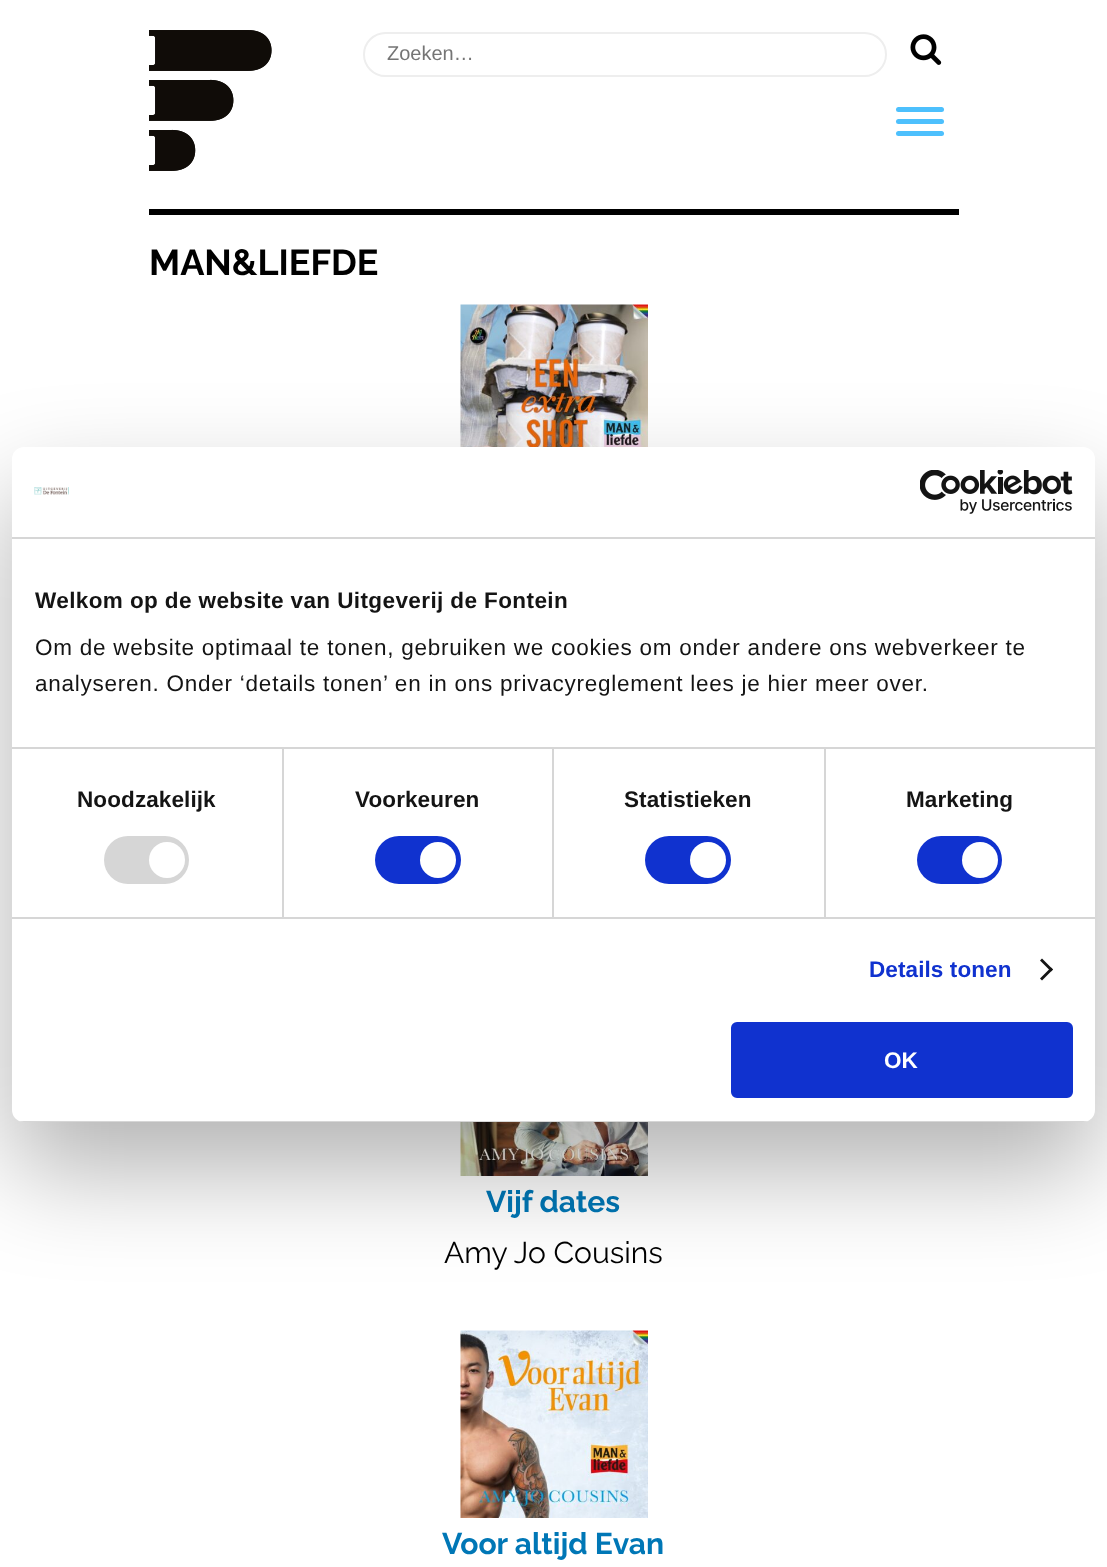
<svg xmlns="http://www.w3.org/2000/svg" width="1107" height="1567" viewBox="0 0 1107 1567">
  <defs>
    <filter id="blur1" x="-50%" y="-200%" width="200%" height="500%"><feGaussianBlur stdDeviation="51"/></filter>
    <clipPath id="clip1"><rect x="12" y="447" width="1083" height="675" rx="12"/></clipPath>
  </defs>
  <rect width="100%" height="100%" fill="#ffffff"/>
  <image x="149" y="30" width="123" height="141" href="img1.png"/>
  <rect x="364" y="33" width="522" height="43" rx="21.5" fill="none" stroke="#eeeeee" stroke-width="2"/>
  <text x="387" y="60" font-family="Liberation Sans" font-size="20" fill="#757575">Zoeken…</text>
  <image x="910" y="34" width="32" height="31" href="img2.png"/>
  <rect x="896" y="107" width="48" height="5" rx="2.5" fill="#4dc0fd"/>
  <rect x="896" y="119" width="48" height="5" rx="2.5" fill="#4dc0fd"/>
  <rect x="896" y="131" width="48" height="5" rx="2.5" fill="#4dc0fd"/>
  <rect x="149" y="209" width="810" height="6" fill="#000000"/>
  <text x="149" y="275" font-family="Raleway" font-size="36" font-weight="bold" fill="#000000">MAN&amp;LIEFDE</text>
  <image x="460" y="304" width="188" height="143" href="img3.png"/>
  <image x="460" y="1122" width="188" height="54" href="img4.png"/>
  <text x="486" y="1212" font-family="Raleway" font-size="30" font-weight="bold" fill="#0077b6">Vijf dates</text>
  <text x="444" y="1263" font-family="Raleway" font-size="30" fill="#000000">Amy Jo Cousins</text>
  <image x="460" y="1330" width="188" height="188" href="img5.png"/>
  <text x="442" y="1554" font-family="Raleway" font-size="30" font-weight="bold" fill="#0077b6">Voor altijd Evan</text>
  <rect x="12" y="495" width="1083" height="675" rx="12" fill="#000000" fill-opacity="0.3" filter="url(#blur1)"/>
  <rect x="12" y="447" width="1083" height="675" rx="12" fill="#ffffff"/>
  <rect x="12" y="537" width="1083" height="2" fill="#d6d6d6"/>
  <image x="34" y="487" width="35" height="8" href="img6.png"/>
  <image x="920" y="470" width="153" height="44" href="img7.png"/>
  <rect x="12" y="747" width="1083" height="2" fill="#d6d6d6"/>
  <text x="35" y="608" font-family="Liberation Sans" font-size="22.5" font-weight="bold" letter-spacing="0.4" fill="#141414">Welkom op de website van Uitgeverij de Fontein</text>
  <text x="35" y="655" font-family="Liberation Sans" font-size="22.5" letter-spacing="0.75" fill="#141414">Om de website optimaal te tonen, gebruiken we cookies om onder andere ons webverkeer te</text>
  <text x="35" y="691" font-family="Liberation Sans" font-size="22.5" letter-spacing="0.75" fill="#141414">analyseren. Onder ‘details tonen’ en in ons privacyreglement lees je hier meer over.</text>
  <rect x="12" y="917" width="1083" height="2" fill="#d6d6d6"/>
  <rect x="282" y="749" width="2" height="168" fill="#d6d6d6"/>
  <text x="77" y="807" font-family="Liberation Sans" font-size="22.5" font-weight="bold" letter-spacing="0.1" fill="#141414">Noodzakelijk</text>
  <rect x="104" y="836" width="85" height="48" rx="24" fill="#d6d6d6"/>
  <circle cx="167" cy="860" r="18" fill="#ffffff"/>
  <rect x="552" y="749" width="2" height="168" fill="#d6d6d6"/>
  <text x="355" y="807" font-family="Liberation Sans" font-size="22.5" font-weight="bold" letter-spacing="0.1" fill="#141414">Voorkeuren</text>
  <rect x="375" y="836" width="86" height="48" rx="24" fill="#1032cf"/>
  <circle cx="438" cy="860" r="18" fill="#ffffff"/>
  <rect x="824" y="749" width="2" height="168" fill="#d6d6d6"/>
  <text x="624" y="807" font-family="Liberation Sans" font-size="22.5" font-weight="bold" letter-spacing="0.1" fill="#141414">Statistieken</text>
  <rect x="645" y="836" width="86" height="48" rx="24" fill="#1032cf"/>
  <circle cx="708" cy="860" r="18" fill="#ffffff"/>
  <text x="906" y="807" font-family="Liberation Sans" font-size="22.5" font-weight="bold" letter-spacing="0.1" fill="#141414">Marketing</text>
  <rect x="917" y="836" width="85" height="48" rx="24" fill="#1032cf"/>
  <circle cx="980" cy="860" r="18" fill="#ffffff"/>
  <text x="869" y="977" font-family="Liberation Sans" font-size="22.5" font-weight="bold" letter-spacing="0.1" fill="#1032cf">Details tonen</text>
  <path d="M1042 958.5L1053 969.5L1051 971.5L1040 960.5Z" fill="#141414"/>
  <path d="M1051 967.5L1053 969.5L1042 980.5L1040 978.5Z" fill="#141414"/>
  <g clip-path="url(#clip1)">
    <rect x="12" y="1121" width="1083" height="1" fill="#d6d6d6"/>
  </g>
  <rect x="732.5" y="1023.5" width="339" height="73" rx="4.5" fill="#1032cf" stroke="#1032cf" stroke-width="3"/>
  <text x="884" y="1068" font-family="Liberation Sans" font-size="22.5" font-weight="bold" fill="#ffffff">OK</text>
</svg>
